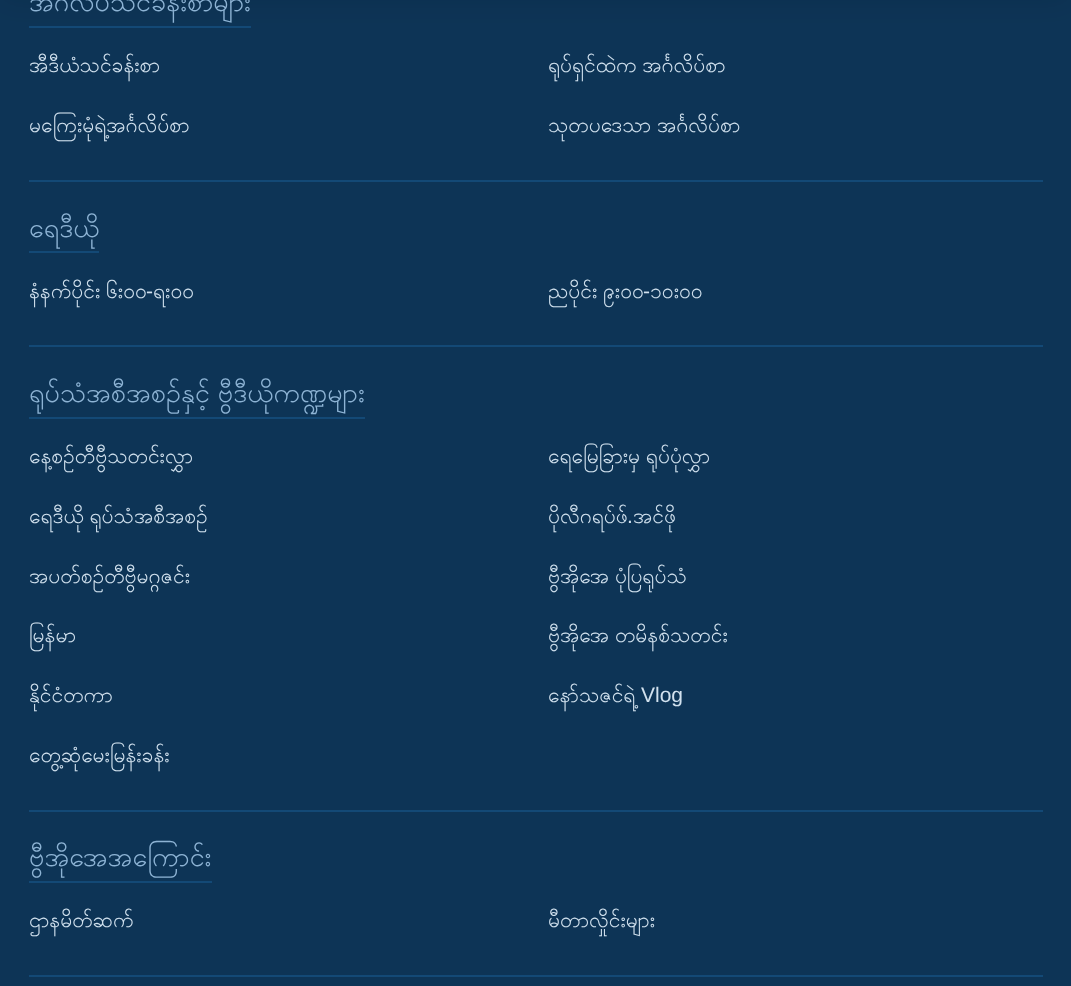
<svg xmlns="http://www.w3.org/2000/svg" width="1071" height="986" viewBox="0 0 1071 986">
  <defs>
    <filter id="blur1" x="-50%" y="-200%" width="200%" height="500%"><feGaussianBlur stdDeviation="15"/></filter>
  </defs>
  <rect width="100%" height="100%" fill="#0d3456"/>
  <rect x="29" y="26" width="222" height="2" fill="#134976"/>
  <rect x="0" y="-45" width="1071" height="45" fill="#000000" fill-opacity="0.1" filter="url(#blur1)"/>
  <text x="29" y="11" font-family="Padauk" font-size="27" fill="#8db3d4">အင်္ဂလိပ်သင်ခန်းစာများ</text>
  <text x="29" y="72" font-family="Padauk" font-size="21" fill="#d1e1ee">အီဒီယံသင်ခန်းစာ</text>
  <text x="548" y="72" word-spacing="-2" font-family="Padauk" font-size="21" fill="#d1e1ee">ရုပ်ရှင်ထဲက အင်္ဂလိပ်စာ</text>
  <text x="29" y="132" font-family="Padauk" font-size="21" fill="#d1e1ee">မကြေးမုံရဲ့အင်္ဂလိပ်စာ</text>
  <text x="548" y="132" word-spacing="-2" font-family="Padauk" font-size="21" fill="#d1e1ee">သုတပဒေသာ အင်္ဂလိပ်စာ</text>
  <rect x="29" y="180" width="1014" height="2" fill="#134976"/>
  <rect x="29" y="251" width="70" height="2" fill="#134976"/>
  <text x="29" y="237" font-family="Padauk" font-size="27" fill="#8db3d4">ရေဒီယို</text>
  <text x="29" y="298" word-spacing="-2" font-family="Padauk" font-size="21" fill="#d1e1ee">နံနက်ပိုင်း ၆း၀၀</text>
  <text x="146" y="298" font-family="Liberation Sans" font-size="21" fill="#d1e1ee">-</text>
  <text x="153" y="298" font-family="Padauk" font-size="21" fill="#d1e1ee">ရး၀၀</text>
  <text x="548" y="298" word-spacing="-2" font-family="Padauk" font-size="21" fill="#d1e1ee">ညပိုင်း ၉း၀၀</text>
  <text x="643" y="298" font-family="Liberation Sans" font-size="21" fill="#d1e1ee">-</text>
  <text x="650" y="298" font-family="Padauk" font-size="21" fill="#d1e1ee">၁၀း၀၀</text>
  <rect x="29" y="345" width="1014" height="2" fill="#134976"/>
  <rect x="29" y="417" width="336" height="2" fill="#134976"/>
  <text x="29" y="402" word-spacing="-2" font-family="Padauk" font-size="27" fill="#8db3d4">ရုပ်သံအစီအစဉ်နှင့် ဗွီဒီယိုကဏ္ဍများ</text>
  <text x="29" y="463" font-family="Padauk" font-size="21" fill="#d1e1ee">နေ့စဉ်တီဗွီသတင်းလွှာ</text>
  <text x="548" y="463" word-spacing="-2" font-family="Padauk" font-size="21" fill="#d1e1ee">ရေမြေခြားမှ ရုပ်ပုံလွှာ</text>
  <text x="29" y="523" word-spacing="-2" font-family="Padauk" font-size="21" fill="#d1e1ee">ရေဒီယို ရုပ်သံအစီအစဉ်</text>
  <text x="548" y="523" font-family="Padauk" font-size="21" fill="#d1e1ee">ပိုလီဂရပ်ဖ်</text>
  <text x="627" y="523" font-family="Liberation Sans" font-size="21" fill="#d1e1ee">.</text>
  <text x="633" y="523" font-family="Padauk" font-size="21" fill="#d1e1ee">အင်ဖို</text>
  <text x="29" y="583" font-family="Padauk" font-size="21" fill="#d1e1ee">အပတ်စဉ်တီဗွီမဂ္ဂဇင်း</text>
  <text x="548" y="583" word-spacing="-2" font-family="Padauk" font-size="21" fill="#d1e1ee">ဗွီအိုအေ ပုံပြရုပ်သံ</text>
  <text x="29" y="642" font-family="Padauk" font-size="21" fill="#d1e1ee">မြန်မာ</text>
  <text x="548" y="642" word-spacing="-2" font-family="Padauk" font-size="21" fill="#d1e1ee">ဗွီအိုအေ တမိနစ်သတင်း</text>
  <text x="29" y="702" font-family="Padauk" font-size="21" fill="#d1e1ee">နိုင်ငံတကာ</text>
  <text x="548" y="702" font-family="Padauk" font-size="21" fill="#d1e1ee">နော်သဇင်ရဲ့</text>
  <text x="641" y="702" font-family="Liberation Sans" font-size="21" fill="#d1e1ee">Vlog</text>
  <text x="29" y="762" font-family="Padauk" font-size="21" fill="#d1e1ee">တွေ့ဆုံမေးမြန်းခန်း</text>
  <rect x="29" y="810" width="1014" height="2" fill="#134976"/>
  <rect x="29" y="881" width="183" height="2" fill="#134976"/>
  <text x="29" y="866" font-family="Padauk" font-size="27" fill="#8db3d4">ဗွီအိုအေအကြောင်း</text>
  <text x="29" y="927" font-family="Padauk" font-size="21" fill="#d1e1ee">ဌာနမိတ်ဆက်</text>
  <text x="548" y="927" font-family="Padauk" font-size="21" fill="#d1e1ee">မီတာလှိုင်းများ</text>
  <rect x="29" y="975" width="1014" height="2" fill="#134976"/>
</svg>
